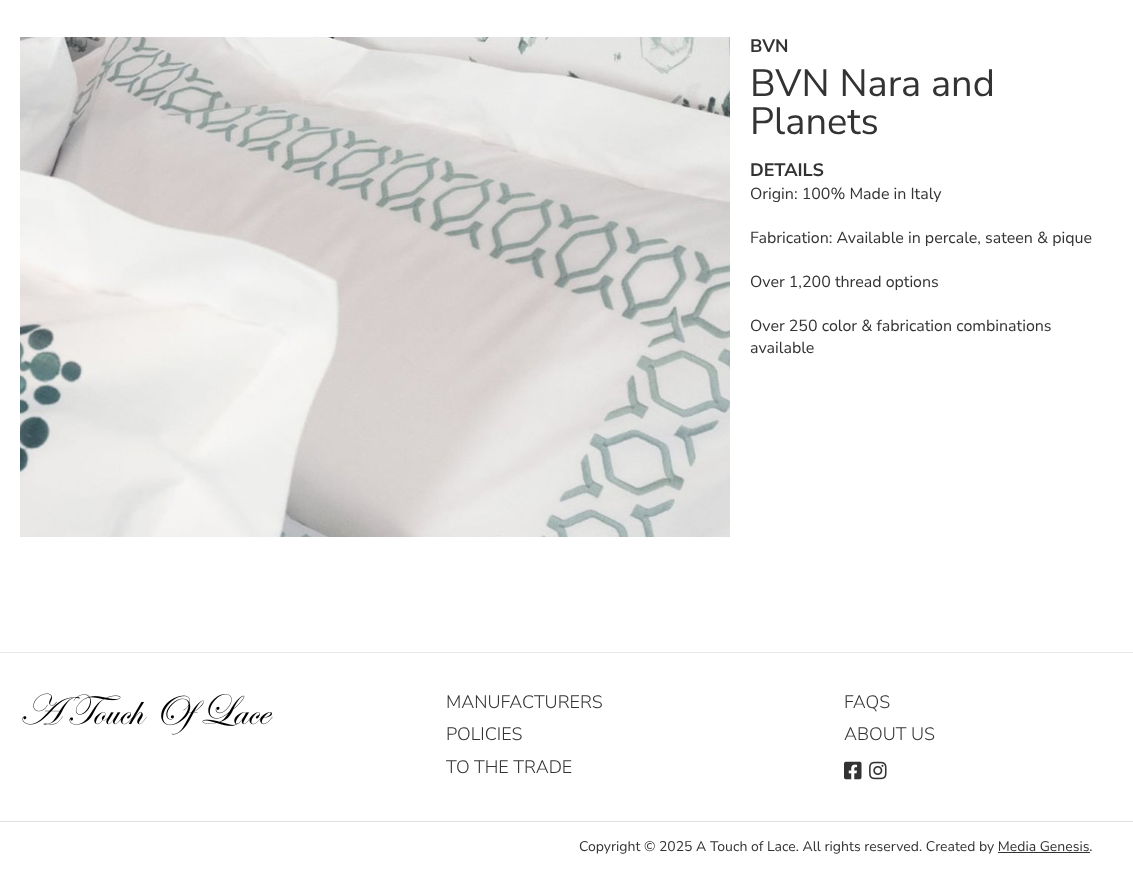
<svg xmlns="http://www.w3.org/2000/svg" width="1133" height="871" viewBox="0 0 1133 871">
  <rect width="100%" height="100%" fill="#ffffff"/>
  <image x="20" y="37" width="710" height="500" href="img1.png"/>
  <text x="750" y="52" font-family="Nunito Sans" font-size="18" font-weight="bold" fill="#333333">BVN</text>
  <text x="750" y="96" font-family="Nunito Sans" font-size="38" fill="#333333">BVN Nara and</text>
  <text x="750" y="134" font-family="Nunito Sans" font-size="38" fill="#333333">Planets</text>
  <text x="750" y="176" font-family="Nunito Sans" font-size="18" font-weight="bold" fill="#333333">DETAILS</text>
  <text x="750" y="199" font-family="Nunito Sans" font-size="16" fill="#333333">Origin: 100% Made in Italy</text>
  <text x="750" y="243" font-family="Nunito Sans" font-size="16" fill="#333333">Fabrication: Available in percale, sateen &amp; pique</text>
  <text x="750" y="287" font-family="Nunito Sans" font-size="16" fill="#333333">Over 1,200 thread options</text>
  <text x="750" y="331" font-family="Nunito Sans" font-size="16" fill="#333333">Over 250 color &amp; fabrication combinations</text>
  <text x="750" y="353" font-family="Nunito Sans" font-size="16" fill="#333333">available</text>
  <rect x="0" y="652" width="1133" height="1" fill="#e8e8e8"/>
  <image x="22" y="693" width="251" height="42" href="img2.png"/>
  <text x="446" y="708" font-family="Nunito Sans" font-size="18" font-weight="300" fill="#333333">MANUFACTURERS</text>
  <text x="844" y="708" font-family="Nunito Sans" font-size="18" font-weight="300" fill="#333333">FAQS</text>
  <text x="446" y="740" font-family="Nunito Sans" font-size="18" font-weight="300" fill="#333333">POLICIES</text>
  <text x="844" y="740" font-family="Nunito Sans" font-size="18" font-weight="300" fill="#333333">ABOUT US</text>
  <text x="446" y="773" font-family="Nunito Sans" font-size="18" font-weight="300" fill="#333333">TO THE TRADE</text>
  <image x="844" y="761" width="18" height="19" href="img3.png"/>
  <image x="869" y="761" width="18" height="19" href="img4.png"/>
  <rect x="0" y="821" width="1133" height="1" fill="#e0e0e0"/>
  <text x="579" y="851" font-family="Nunito Sans" font-size="14" fill="#333333">Copyright © 2025 A Touch of Lace. All rights reserved. Created by Media Genesis.</text>
  <rect x="998" y="852" width="92" height="1" fill="#333333"/>
</svg>
